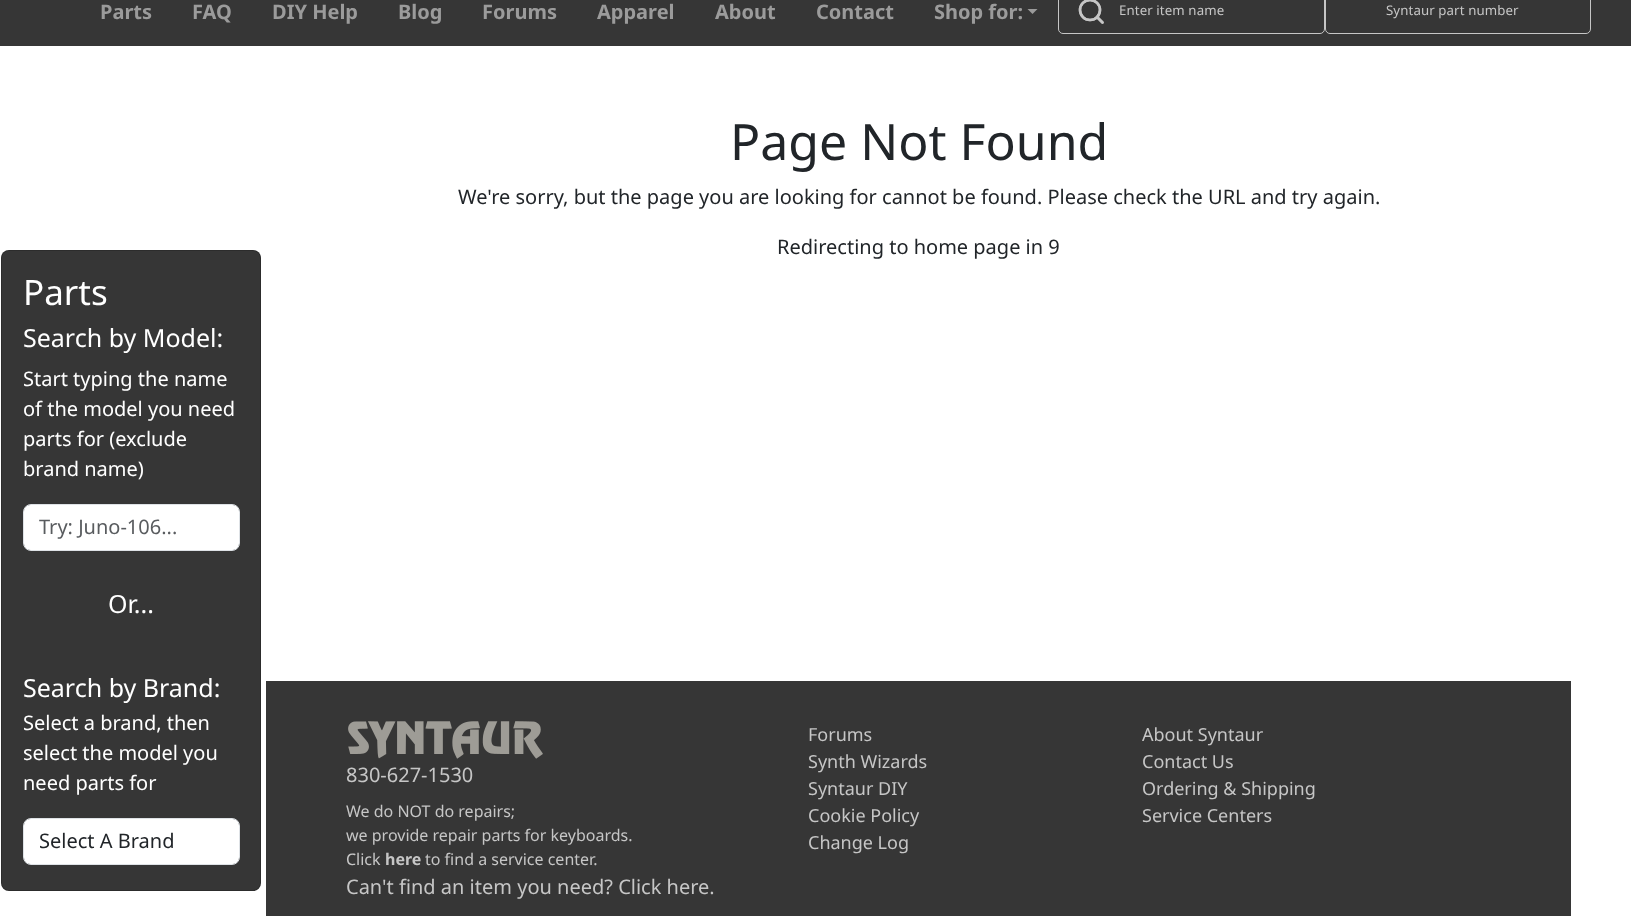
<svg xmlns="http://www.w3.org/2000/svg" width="1631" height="916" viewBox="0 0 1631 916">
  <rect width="100%" height="100%" fill="#ffffff"/>
  <rect x="0" y="0" width="1631" height="46" fill="#363636"/>
  <text x="100" y="19" font-family="Noto Sans" font-size="20" font-weight="bold" fill="#9b9b9b">Parts</text>
  <text x="192" y="19" font-family="Noto Sans" font-size="20" font-weight="bold" fill="#9b9b9b">FAQ</text>
  <text x="272" y="19" font-family="Noto Sans" font-size="20" font-weight="bold" fill="#9b9b9b">DIY Help</text>
  <text x="398" y="19" font-family="Noto Sans" font-size="20" font-weight="bold" fill="#9b9b9b">Blog</text>
  <text x="482" y="19" font-family="Noto Sans" font-size="20" font-weight="bold" fill="#9b9b9b">Forums</text>
  <text x="597" y="19" font-family="Noto Sans" font-size="20" font-weight="bold" fill="#9b9b9b">Apparel</text>
  <text x="715" y="19" font-family="Noto Sans" font-size="20" font-weight="bold" fill="#9b9b9b">About</text>
  <text x="816" y="19" font-family="Noto Sans" font-size="20" font-weight="bold" fill="#9b9b9b">Contact</text>
  <text x="934" y="19" font-family="Noto Sans" font-size="20" font-weight="bold" fill="#9b9b9b">Shop for:</text>
  <path d="M1027.5 9H1037.5L1032.5 14Z" fill="#9b9b9b"/>
  <rect x="1058.5" y="-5.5" width="266" height="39" rx="4.5" fill="none" stroke="#c6c6c6"/>
  <circle cx="1090" cy="10" r="10" fill="none" stroke="#c6c6c6" stroke-width="2.5"/>
  <path d="M1102.5 22.5L1097 17" fill="none" stroke="#c6c6c6" stroke-width="2.5" stroke-linecap="round" stroke-linejoin="round"/>
  <circle cx="1090" cy="10" r="10" fill="none" stroke="#c6c6c6" stroke-width="2.5"/>
  <path d="M1102.5 22.5L1097 17" fill="none" stroke="#c6c6c6" stroke-width="2.5" stroke-linecap="round" stroke-linejoin="round"/>
  <text x="1119" y="15" font-family="Noto Sans" font-size="13.25" letter-spacing="0.1" fill="#c6c6c6">Enter item name</text>
  <rect x="1325.5" y="-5.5" width="265" height="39" rx="4.5" fill="none" stroke="#c6c6c6"/>
  <text x="1386" y="15" font-family="Noto Sans" font-size="13.25" letter-spacing="0.1" fill="#c6c6c6">Syntaur part number</text>
  <rect x="1" y="250" width="260" height="641" rx="8" fill="#363636"/>
  <rect x="1.5" y="250.5" width="259" height="640" rx="7.5" fill="none" stroke="#000000" stroke-opacity="0.18"/>
  <text x="23" y="305" font-family="Noto Sans" font-size="35" fill="#ffffff">Parts</text>
  <text x="23" y="347" font-family="Noto Sans" font-size="25" fill="#ffffff">Search by Model:</text>
  <text x="23" y="386" font-family="Noto Sans" font-size="20" fill="#ffffff">Start typing the name</text>
  <text x="23" y="416" font-family="Noto Sans" font-size="20" fill="#ffffff">of the model you need</text>
  <text x="23" y="446" font-family="Noto Sans" font-size="20" fill="#ffffff">parts for (exclude</text>
  <text x="23" y="476" font-family="Noto Sans" font-size="20" fill="#ffffff">brand name)</text>
  <rect x="24" y="505" width="215" height="45" rx="6" fill="#ffffff"/>
  <rect x="23.5" y="504.5" width="216" height="46" rx="7.5" fill="none" stroke="#dee2e6"/>
  <text x="39" y="534" font-family="Noto Sans" font-size="20" fill="#595c5f">Try: Juno-106...</text>
  <text x="108" y="613" font-family="Noto Sans" font-size="25" fill="#ffffff">Or...</text>
  <text x="23" y="697" font-family="Noto Sans" font-size="25" fill="#ffffff">Search by Brand:</text>
  <text x="23" y="730" font-family="Noto Sans" font-size="20" fill="#ffffff">Select a brand, then</text>
  <text x="23" y="760" font-family="Noto Sans" font-size="20" fill="#ffffff">select the model you</text>
  <text x="23" y="790" font-family="Noto Sans" font-size="20" fill="#ffffff">need parts for</text>
  <rect x="24" y="819" width="215" height="45" rx="6" fill="#ffffff"/>
  <rect x="23.5" y="818.5" width="216" height="46" rx="7.5" fill="none" stroke="#dee2e6"/>
  <text x="39" y="848" font-family="Noto Sans" font-size="20" fill="#212529">Select A Brand</text>
  <text x="730" y="160" font-family="Noto Sans" font-size="50" fill="#212529">Page Not Found</text>
  <text x="458" y="204" font-family="Noto Sans" font-size="20" fill="#212529">We're sorry, but the page you are looking for cannot be found. Please check the URL and try again.</text>
  <text x="777" y="254" font-family="Noto Sans" font-size="20" fill="#212529">Redirecting to home page in 9</text>
  <rect x="266" y="681" width="1305" height="235" fill="#363636"/>
  <image x="348" y="721" width="195" height="38" href="img1.png"/>
  <text x="346" y="782" font-family="Noto Sans" font-size="20" fill="#c6c6c6">830-627-1530</text>
  <text x="346" y="817" font-family="Noto Sans" font-size="16" fill="#c6c6c6">We do NOT do repairs;</text>
  <text x="346" y="841" font-family="Noto Sans" font-size="16" fill="#c6c6c6">we provide repair parts for keyboards.</text>
  <text x="346" y="865" font-family="Noto Sans" font-size="16" fill="#c6c6c6">Click</text>
  <text x="385" y="865" font-family="Noto Sans" font-size="16" font-weight="bold" fill="#c6c6c6">here</text>
  <text x="425" y="865" font-family="Noto Sans" font-size="16" fill="#c6c6c6">to find a service center.</text>
  <text x="808" y="741" font-family="Noto Sans" font-size="18" fill="#c6c6c6">Forums</text>
  <text x="808" y="768" font-family="Noto Sans" font-size="18" fill="#c6c6c6">Synth Wizards</text>
  <text x="808" y="795" font-family="Noto Sans" font-size="18" fill="#c6c6c6">Syntaur DIY</text>
  <text x="808" y="822" font-family="Noto Sans" font-size="18" fill="#c6c6c6">Cookie Policy</text>
  <text x="808" y="849" font-family="Noto Sans" font-size="18" fill="#c6c6c6">Change Log</text>
  <text x="1142" y="741" font-family="Noto Sans" font-size="18" fill="#c6c6c6">About Syntaur</text>
  <text x="1142" y="768" font-family="Noto Sans" font-size="18" fill="#c6c6c6">Contact Us</text>
  <text x="1142" y="795" font-family="Noto Sans" font-size="18" fill="#c6c6c6">Ordering &amp; Shipping</text>
  <text x="1142" y="822" font-family="Noto Sans" font-size="18" fill="#c6c6c6">Service Centers</text>
  <text x="346" y="894" font-family="Noto Sans" font-size="20" fill="#c6c6c6">Can't find an item you need? Click here.</text>
</svg>
